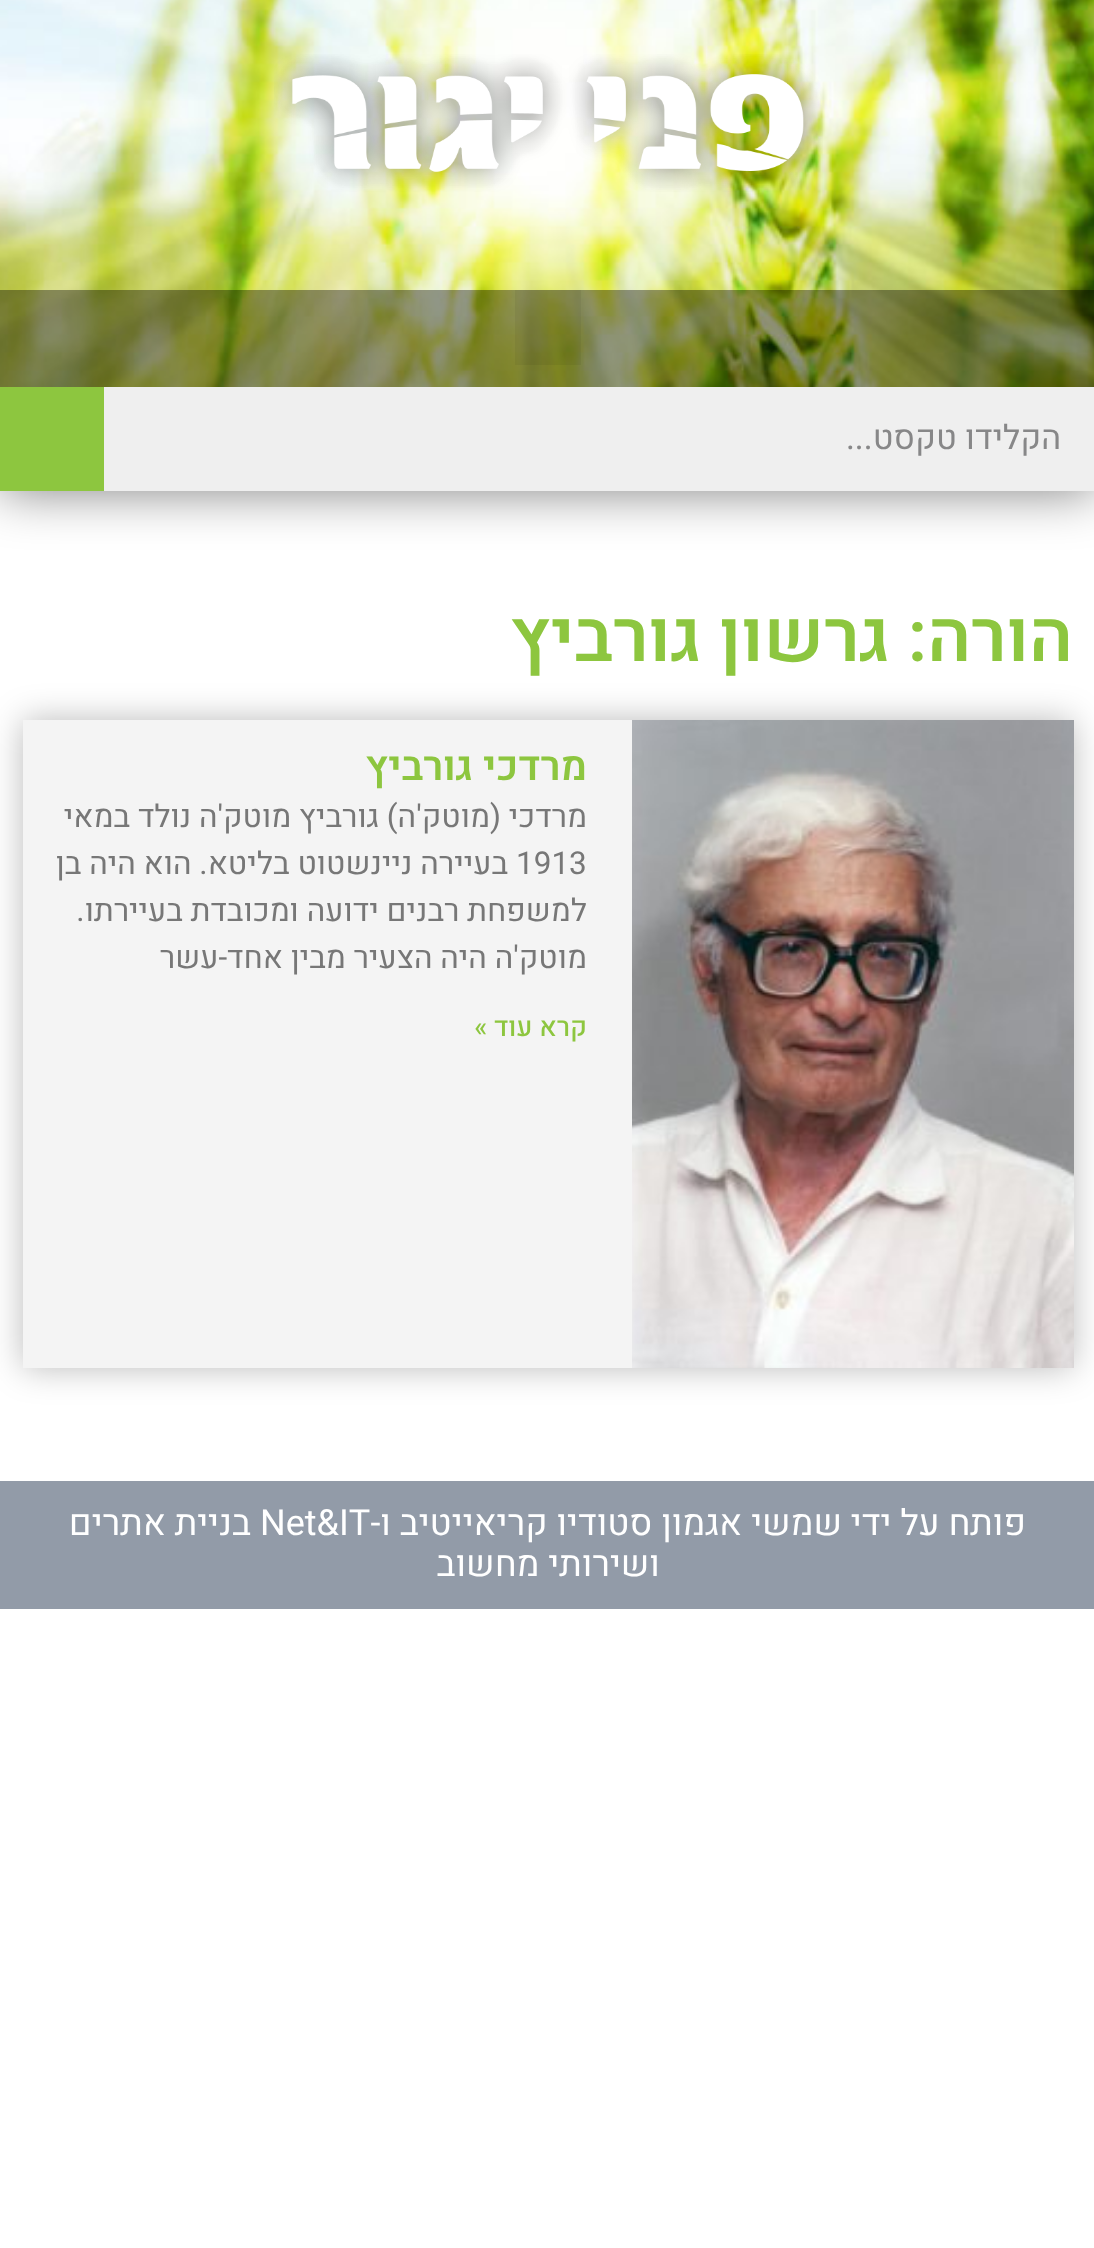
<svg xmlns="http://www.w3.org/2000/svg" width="1094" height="2248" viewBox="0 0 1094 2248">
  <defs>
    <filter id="blur1" x="-50%" y="-200%" width="200%" height="500%"><feGaussianBlur stdDeviation="26"/></filter>
    <filter id="blur2" x="-50%" y="-200%" width="200%" height="500%"><feGaussianBlur stdDeviation="17"/></filter>
  </defs>
  <rect width="100%" height="100%" fill="#ffffff"/>
  <rect x="0" y="0" width="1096" height="491" fill="#000000" fill-opacity="0.5" filter="url(#blur1)"/>
  <image x="0" y="0" width="1094" height="387" href="img1.png"/>
  <image x="274" y="54" width="549" height="138" href="img2.png"/>
  <rect x="0" y="290" width="1094" height="97" fill="#000000" fill-opacity="0.39"/>
  <rect x="515" y="290" width="66" height="75" fill="#000000" fill-opacity="0.05"/>
  <rect x="104" y="387" width="990" height="104" fill="#efefef"/>
  <text x="1061" y="449" font-family="Heebo" font-size="33.75" direction="rtl" fill="#878788">הקלידו טקסט...</text>
  <rect x="0" y="387" width="104" height="104" fill="#8dc63f"/>
  <text x="1073" y="661" font-family="Heebo" font-size="72" font-weight="600" direction="rtl" fill="#8dc63f">הורה: גרשון גורביץ</text>
  <rect x="23" y="720" width="1050" height="648" fill="#000000" fill-opacity="0.27" filter="url(#blur2)"/>
  <rect x="23" y="720" width="609" height="648" fill="#f4f4f4"/>
  <image x="632" y="720" width="442" height="648" href="img3.png"/>
  <text x="587" y="780" font-family="Heebo" font-size="40.5" font-weight="600" direction="rtl" fill="#8dc63f">מרדכי גורביץ</text>
  <text x="587" y="827" font-family="Heebo" font-size="31.5" direction="rtl" fill="#777777">מרדכי (מוטק'ה) גורביץ מוטק'ה נולד במאי</text>
  <text x="516" y="874" font-family="Heebo" font-size="31.5" fill="#777777">1913</text>
  <text x="508" y="874" font-family="Heebo" font-size="31.5" direction="rtl" fill="#777777">בעיירה ניינשטוט בליטא. הוא היה בן</text>
  <text x="587" y="921" font-family="Heebo" font-size="31.5" direction="rtl" fill="#777777">למשפחת רבנים ידועה ומכובדת בעיירתו.</text>
  <text x="587" y="968" font-family="Heebo" font-size="31.5" direction="rtl" fill="#777777">מוטק'ה היה הצעיר מבין אחד-עשר</text>
  <text x="587" y="1036" font-family="Heebo" font-size="27" font-weight="500" direction="rtl" fill="#8dc63f">קרא עוד »</text>
  <rect x="0" y="1481" width="1094" height="128" fill="#929ba8"/>
  <text x="1026" y="1535" font-family="Heebo" font-size="36" direction="rtl" fill="#ffffff">פותח על ידי</text>
  <text x="842" y="1535" font-family="Heebo" font-size="36" direction="rtl" fill="#ffffff">שמשי אגמון סטודיו קריאייטיב</text>
  <text x="391" y="1535" font-family="Heebo" font-size="36" direction="rtl" fill="#ffffff">ו-</text>
  <text x="260" y="1535" font-family="Heebo" font-size="36" fill="#ffffff">Net&amp;IT</text>
  <text x="251" y="1535" font-family="Heebo" font-size="36" direction="rtl" fill="#ffffff">בניית אתרים</text>
  <text x="660" y="1576" font-family="Heebo" font-size="36" direction="rtl" fill="#ffffff">ושירותי מחשוב</text>
</svg>
